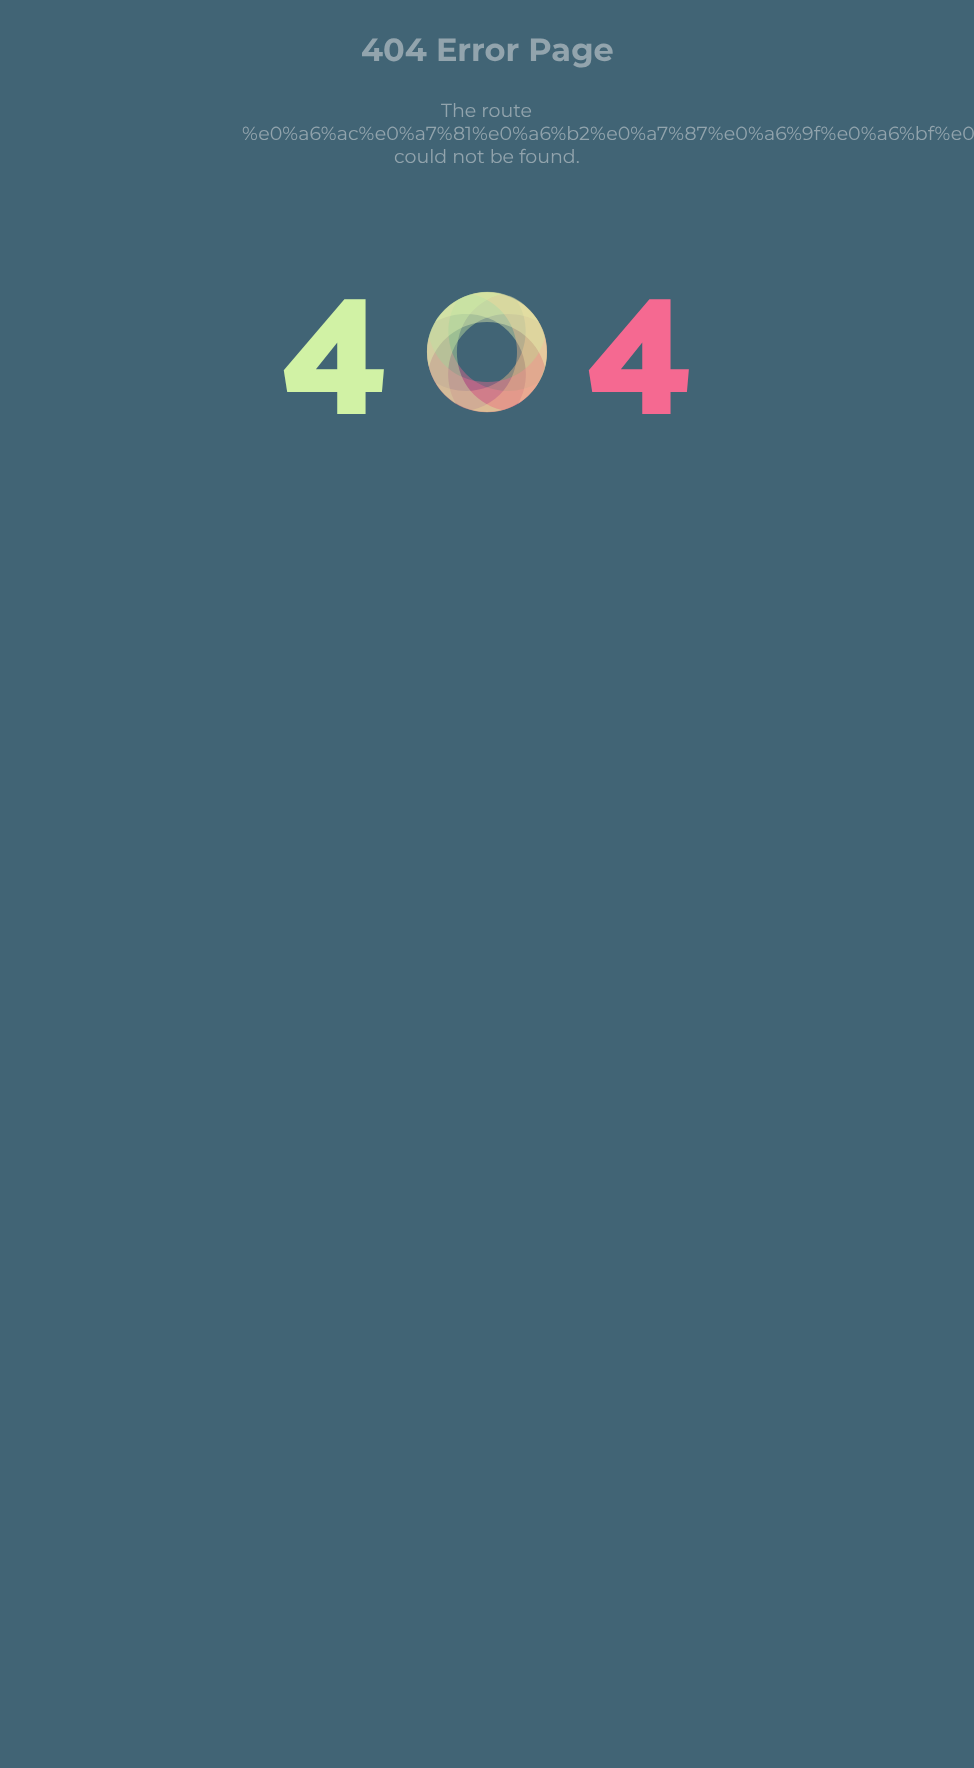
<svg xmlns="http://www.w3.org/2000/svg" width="974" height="1768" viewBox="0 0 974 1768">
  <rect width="100%" height="100%" fill="#416475"/>
  <text x="361" y="61" font-family="Montserrat" font-size="32" font-weight="bold" fill="#92a4ad">404 Error Page</text>
  <text x="441" y="117" font-family="Montserrat" font-size="19" fill="#92a4ad">The route</text>
  <text x="242" y="140" font-family="Montserrat" font-size="19" fill="#92a4ad">%e0%a6%ac%e0%a7%81%e0%a6%b2%e0%a7%87%e0%a6%9f%e0%a6%bf%e0</text>
  <text x="394" y="163" font-family="Montserrat" font-size="19" fill="#92a4ad">could not be found.</text>
  <text x="282" y="402" font-family="Catamaran" font-size="180" font-weight="800" fill="#d1f2a5">4</text>
  <path d="M538 383C515 396 485 393 466 374C446 354 443 323 457 301C415 325 418 389 464 408C475 412 487 413 498 411C515 408 530 398 538 383Z" fill="#896680"/>
  <path d="M529 310C526 306 522 303 517 301C531 323 528 354 508 374C489 393 459 396 436 383C438 387 441 391 445 395C468 418 506 418 529 395C553 371 553 333 529 310Z" fill="#ffc48c" fill-opacity="0.4"/>
  <path d="M508 331C528 351 531 381 518 404C532 395 543 380 546 364C548 352 547 340 543 330C524 284 460 280 435 322C459 309 489 312 508 331Z" fill="#effab4" fill-opacity="0.4"/>
  <path d="M529 310C506 286 468 286 445 310C421 333 421 371 445 395C448 398 452 401 456 404C443 381 446 351 466 331C485 312 515 309 539 322C536 318 533 314 529 310Z" fill="#d1f2a5" fill-opacity="0.4"/>
  <path d="M429 337C415 389 474 433 521 402C530 395 538 386 542 375C547 363 548 350 545 337C530 397 444 397 429 337Z" fill="#f56991" fill-opacity="0.4"/>
  <path d="M487 292C482 292 477 293 472 294C532 309 532 395 472 410C477 411 482 412 487 412C520 412 547 385 547 352C547 319 520 292 487 292Z" fill="#ffc48c" fill-opacity="0.4"/>
  <path d="M487 322C515 322 538 341 545 367C548 354 547 341 542 329C538 318 530 309 521 302C474 271 415 315 429 367C436 341 459 322 487 322Z" fill="#effab4" fill-opacity="0.4"/>
  <path d="M487 292C454 292 427 319 427 352C427 385 454 412 487 412C492 412 497 411 502 410C442 395 442 309 502 294C497 293 492 292 487 292Z" fill="#d1f2a5" fill-opacity="0.4"/>
  <text x="587" y="402" font-family="Catamaran" font-size="180" font-weight="800" fill="#f56991">4</text>
</svg>
